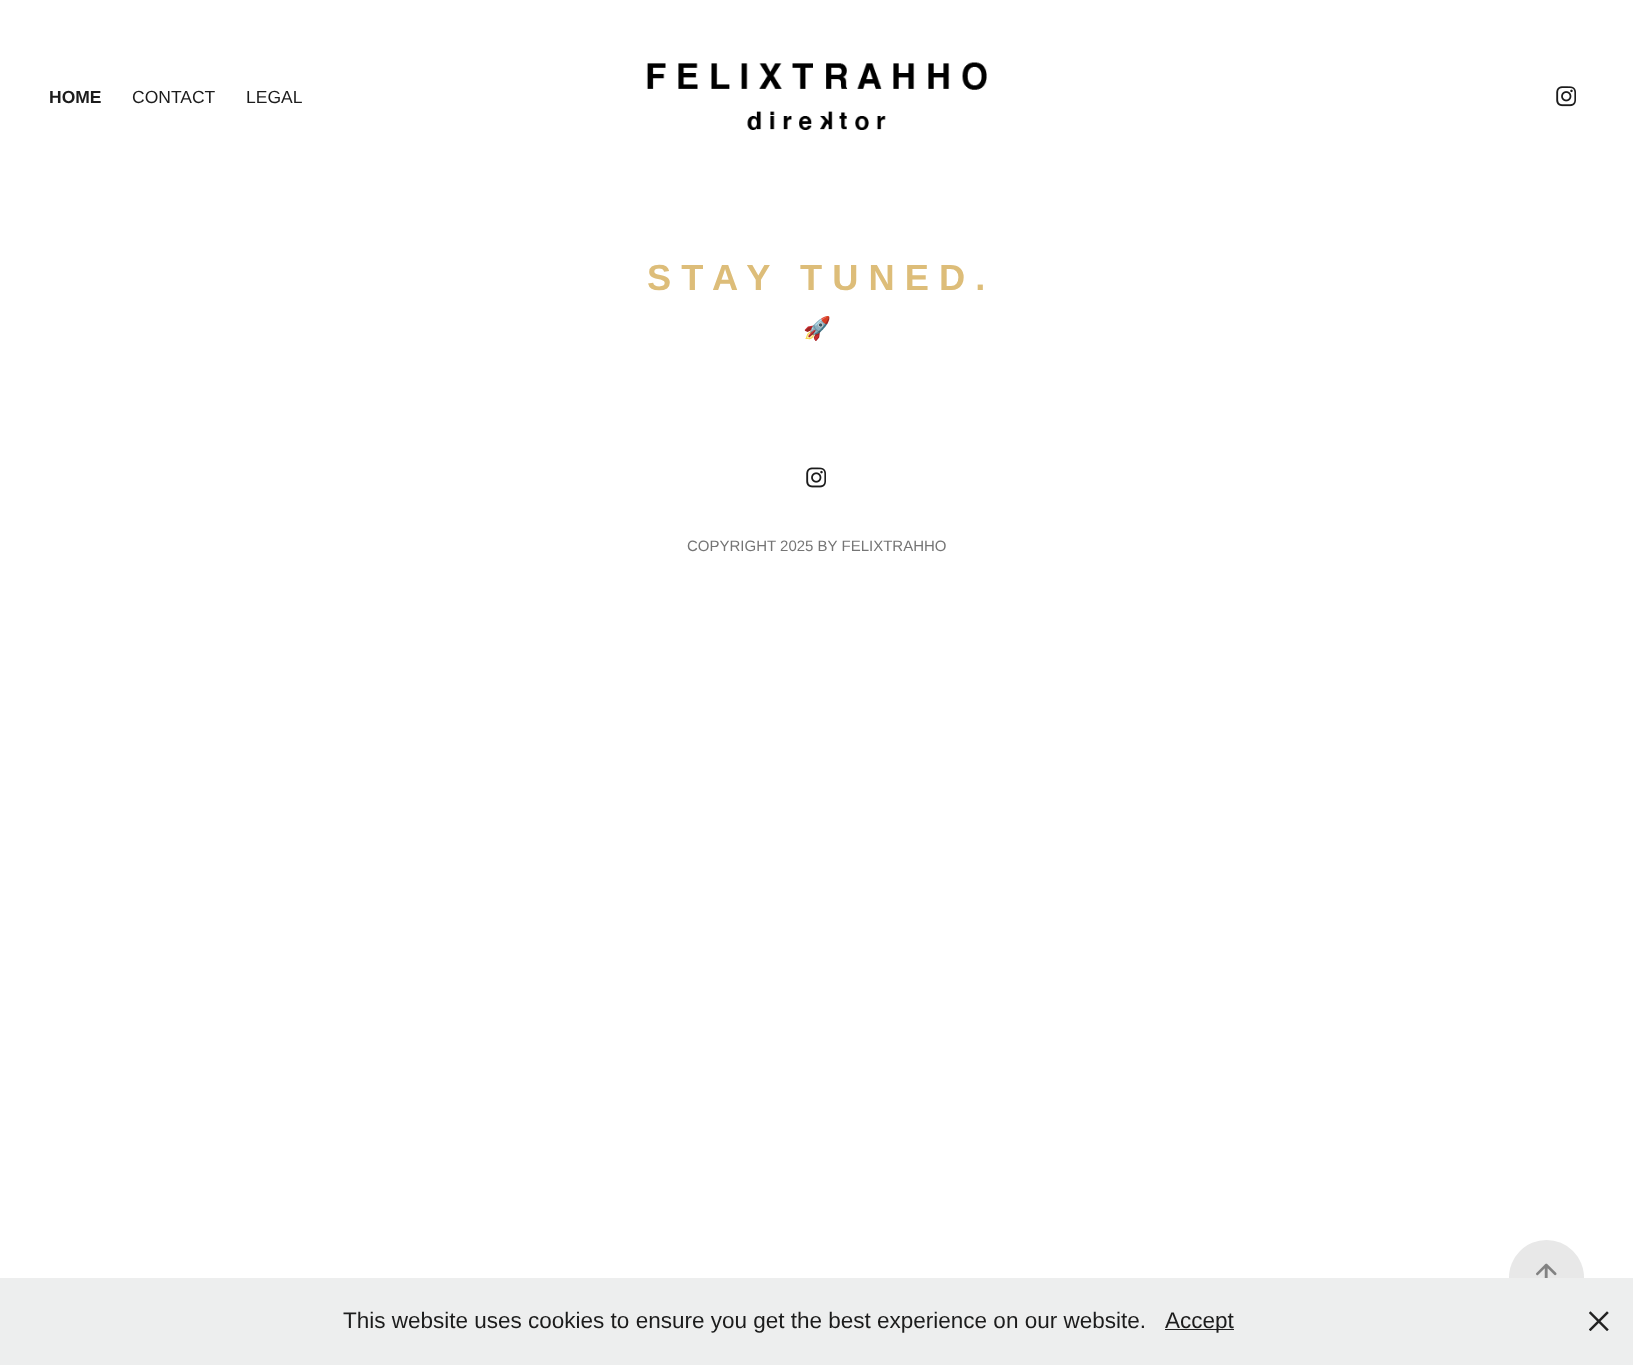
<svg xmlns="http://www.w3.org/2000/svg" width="1633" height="1365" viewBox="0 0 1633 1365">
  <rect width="100%" height="100%" fill="#ffffff"/>
  <text x="49" y="103" font-family="Liberation Sans" font-size="17.5" font-weight="bold" fill="#1c1c1c">HOME</text>
  <text x="132" y="103" font-family="Liberation Sans" font-size="17.5" fill="#1c1c1c">CONTACT</text>
  <text x="246" y="103" font-family="Liberation Sans" font-size="17.5" fill="#1c1c1c">LEGAL</text>
  <image x="646" y="62" width="341" height="68" href="img1.png"/>
  <image x="1556" y="86" width="20" height="21" href="img2.png"/>
  <text x="647" y="290" font-family="Liberation Sans" font-size="36.25" font-weight="bold" fill="#ddbd79" xml:space="preserve">S T A Y   T U N E D .</text>
  <text x="803" y="336" font-family="Noto Color Emoji" font-size="22.5" fill="#ddbd79">🚀</text>
  <circle cx="1546.5" cy="1277.5" r="37.5" fill="#e8e8e8"/>
  <image x="1536" y="1263" width="21" height="15" href="img3.png"/>
  <image x="806" y="467" width="20" height="21" href="img4.png"/>
  <text x="687" y="551" font-family="Liberation Sans" font-size="15" fill="#757575">COPYRIGHT 2025 BY FELIXTRAHHO</text>
  <rect x="0" y="1278" width="1633" height="87" fill="#edeeee"/>
  <text x="343" y="1328" font-family="Liberation Sans" font-size="22.5" fill="#1c1c1c">This website uses cookies to ensure you get the best experience on our website.</text>
  <rect x="1165" y="1329" width="69" height="1" fill="#212121"/>
  <text x="1165" y="1328" font-family="Liberation Sans" font-size="22.5" fill="#1c1c1c">Accept</text>
  <image x="1589" y="1311" width="20" height="20" href="img5.png"/>
</svg>
